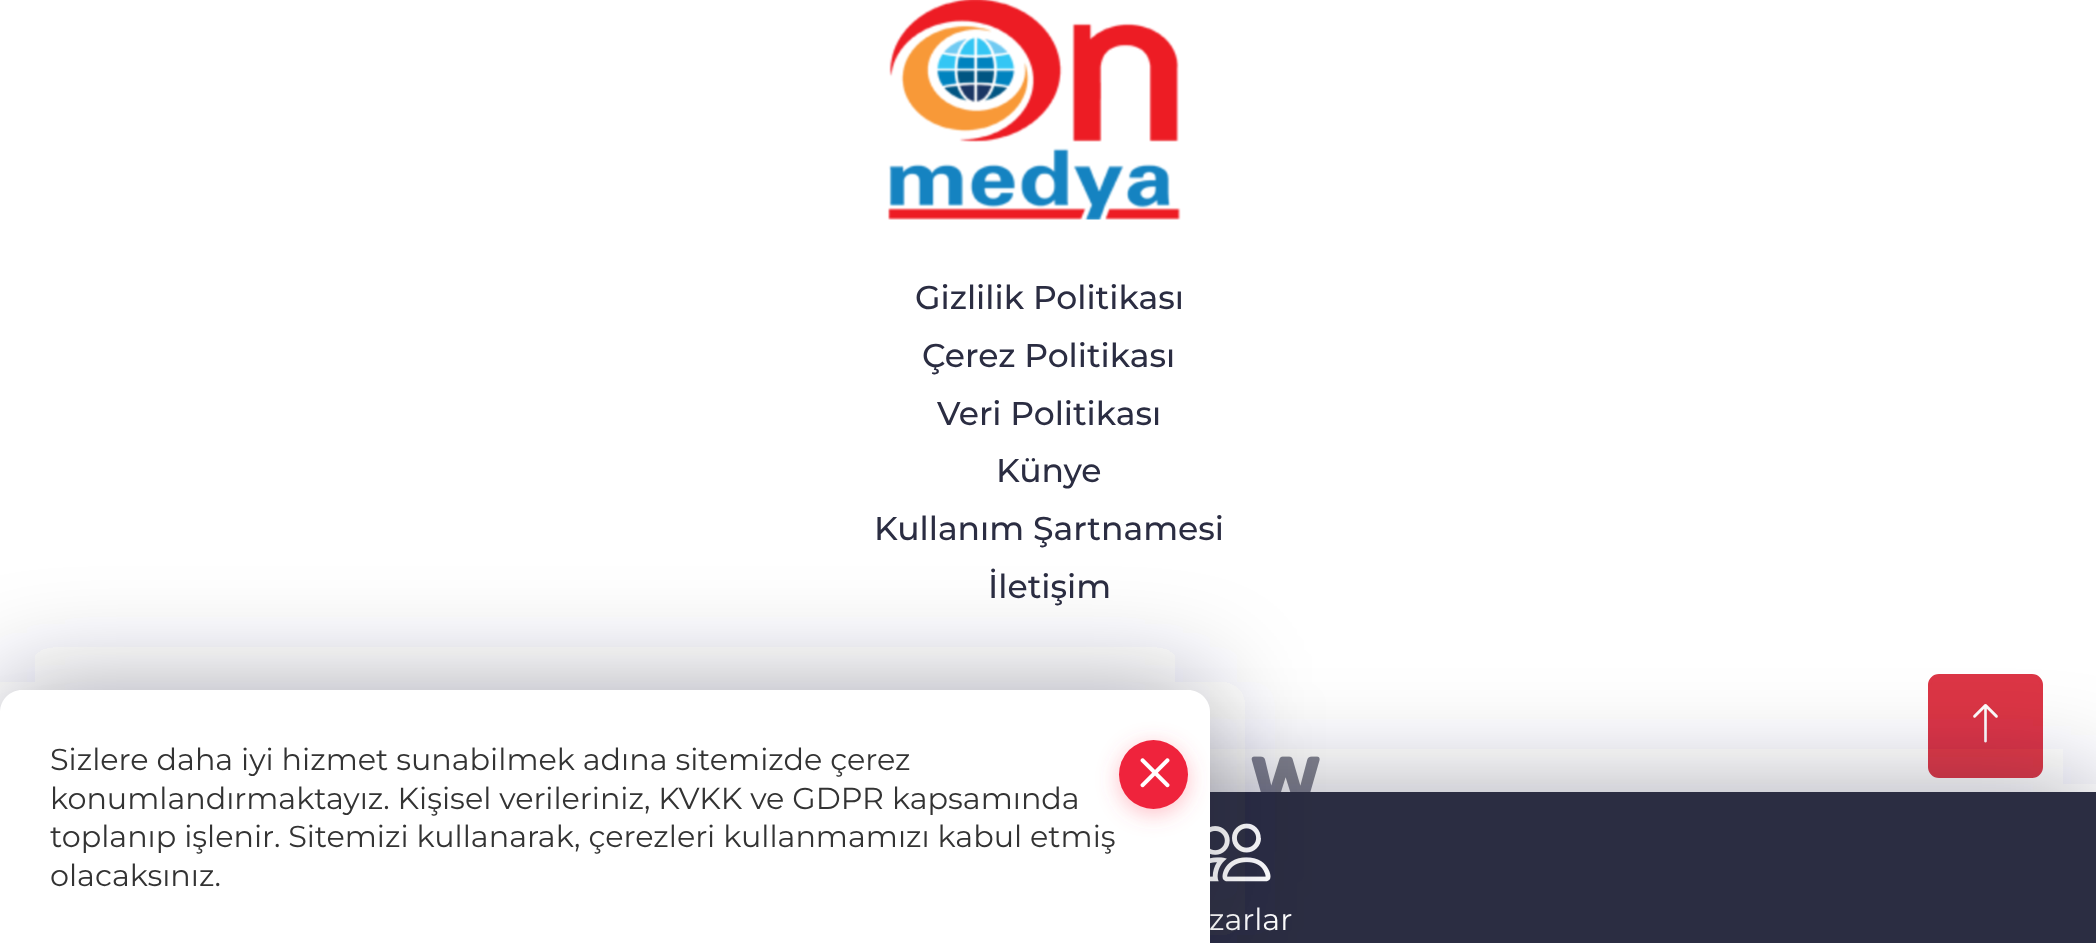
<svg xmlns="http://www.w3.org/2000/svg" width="2096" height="943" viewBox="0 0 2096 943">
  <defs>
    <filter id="blur1" x="-50%" y="-200%" width="200%" height="500%"><feGaussianBlur stdDeviation="52"/></filter>
    <filter id="blur2" x="-50%" y="-200%" width="200%" height="500%"><feGaussianBlur stdDeviation="11"/></filter>
  </defs>
  <rect width="100%" height="100%" fill="#ffffff"/>
  <image x="887" y="0" width="294" height="220" href="img1.png"/>
  <text x="915" y="309" font-family="Montserrat" font-size="33" font-weight="500" fill="#2b2d42">Gizlilik Politikası</text>
  <text x="922" y="367" font-family="Montserrat" font-size="33" font-weight="500" fill="#2b2d42">Çerez Politikası</text>
  <text x="937" y="425" font-family="Montserrat" font-size="33" font-weight="500" fill="#2b2d42">Veri Politikası</text>
  <text x="996" y="482" font-family="Montserrat" font-size="33" font-weight="500" fill="#2b2d42">Künye</text>
  <text x="874" y="540" font-family="Montserrat" font-size="33" font-weight="500" fill="#2b2d42">Kullanım Şartnamesi</text>
  <text x="988" y="598" font-family="Montserrat" font-size="33" font-weight="500" fill="#2b2d42">İletişim</text>
  <image x="1251" y="756" width="69" height="36" href="img2.png"/>
  <rect x="1929.5" y="675.5" width="112" height="101" rx="9.5" fill="#dc3545" stroke="#dc3545" stroke-width="3"/>
  <image x="1973" y="704" width="25" height="39" href="img4.png"/>
  <rect x="0" y="784" width="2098" height="151" fill="#2b2d42" fill-opacity="0.36" filter="url(#blur1)"/>
  <rect x="1210" y="792" width="886" height="151" fill="#2b2d42"/>
  <image x="1210" y="823" width="61" height="59" href="img3.png"/>
  <text x="1209" y="930" font-family="Montserrat" font-size="30.25" fill="#ffffff">zarlar</text>
  <rect x="0" y="682" width="1210" height="253" rx="22" fill="#2b2d42" fill-opacity="0.36" filter="url(#blur1)"/>
  <path d="M22 690H1188C1200 690 1210 700 1210 712V943H0V712C0 700 10 690 22 690Z" fill="#ffffff"/>
  <text x="50" y="770" font-family="Montserrat" font-size="30.25" fill="#333333">Sizlere daha iyi hizmet sunabilmek adına sitemizde çerez</text>
  <rect x="1119" y="745" width="69" height="69" rx="34.5" fill="#ff566a" fill-opacity="0.38" filter="url(#blur2)"/>
  <circle cx="1153.5" cy="774.5" r="34.5" fill="#ef233c"/>
  <image x="1140" y="758" width="30" height="30" href="img5.png"/>
  <text x="50" y="809" font-family="Montserrat" font-size="30.25" fill="#333333">konumlandırmaktayız. Kişisel verileriniz, KVKK ve GDPR kapsamında</text>
  <text x="50" y="847" font-family="Montserrat" font-size="30.25" fill="#333333">toplanıp işlenir. Sitemizi kullanarak, çerezleri kullanmamızı kabul etmiş</text>
  <text x="50" y="886" font-family="Montserrat" font-size="30.25" fill="#333333">olacaksınız.</text>
</svg>
